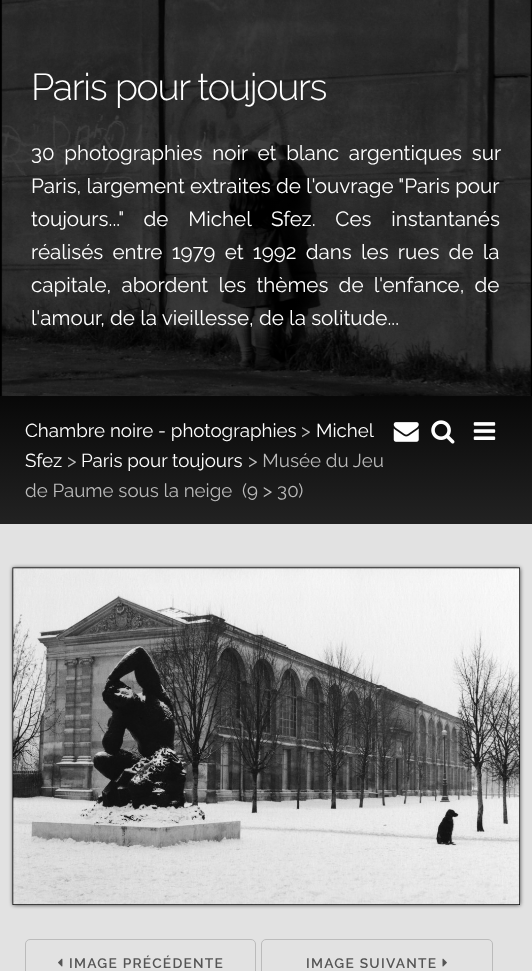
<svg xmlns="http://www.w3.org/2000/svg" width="532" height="971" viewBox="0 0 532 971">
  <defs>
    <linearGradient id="g1" gradientUnits="userSpaceOnUse" x1="266" y1="396" x2="266" y2="524"><stop offset="0" stop-color="#080808"/><stop offset="1" stop-color="#222222"/></linearGradient>
    <filter id="blur1" x="-50%" y="-200%" width="200%" height="500%"><feGaussianBlur stdDeviation="2"/></filter>
  </defs>
  <rect width="100%" height="100%" fill="#ffffff"/>
  <image x="0" y="0" width="532" height="396" href="img1.png"/>
  <text x="31" y="100" font-family="Raleway" font-size="37.5" font-weight="300" letter-spacing="-1.25" fill="#ffffff">Paris pour toujours</text>
  <text x="31" y="160" word-spacing="4.5" font-family="Raleway" font-size="20.6" fill="#ffffff">30 photographies noir et blanc argentiques sur</text>
  <text x="31" y="193" font-family="Raleway" font-size="20.6" fill="#ffffff">Paris, largement extraites de l'ouvrage "Paris pour</text>
  <text x="31" y="226" word-spacing="14.5" font-family="Raleway" font-size="20.6" fill="#ffffff">toujours..." de Michel Sfez. Ces instantanés</text>
  <text x="31" y="259" word-spacing="4" font-family="Raleway" font-size="20.6" fill="#ffffff">réalisés entre 1979 et 1992 dans les rues de la</text>
  <text x="31" y="292" word-spacing="5" font-family="Raleway" font-size="20.6" fill="#ffffff">capitale, abordent les thèmes de l'enfance, de</text>
  <text x="31" y="325" font-family="Raleway" font-size="20.6" fill="#ffffff">l'amour, de la vieillesse, de la solitude...</text>
  <rect x="0" y="396" width="532" height="128" fill="url(#g1)"/>
  <text x="25" y="437" font-family="Raleway" font-size="18.75" fill="#ffffff">Chambre noire - photographies</text>
  <text x="301" y="437" font-family="Raleway" font-size="18.75" fill="#bbbbbb">&gt;</text>
  <text x="316" y="437" font-family="Raleway" font-size="18.75" fill="#ffffff">Michel</text>
  <text x="25" y="467" font-family="Raleway" font-size="18.75" fill="#ffffff">Sfez</text>
  <text x="67" y="467" font-family="Raleway" font-size="18.75" fill="#bbbbbb">&gt;</text>
  <text x="81" y="467" font-family="Raleway" font-size="18.75" fill="#ffffff">Paris pour toujours</text>
  <text x="248" y="467" font-family="Raleway" font-size="18.75" fill="#bbbbbb">&gt; Musée du Jeu</text>
  <text x="25" y="497" font-family="Raleway" font-size="18.75" fill="#bbbbbb">de Paume sous la neige</text>
  <text x="242" y="497" font-family="Raleway" font-size="18.75" fill="#bbbbbb">(9 &gt; 30)</text>
  <image x="393" y="422" width="26" height="20" href="img2.png"/>
  <image x="431" y="420" width="24" height="24" href="img3.png"/>
  <image x="473" y="422" width="23" height="18" href="img4.png"/>
  <rect x="0" y="524" width="532" height="447" fill="#e2e2e2"/>
  <rect x="13" y="568" width="507" height="337" fill="#000000" fill-opacity="0.75" filter="url(#blur1)"/>
  <image x="12" y="567" width="508" height="338" href="img5.png"/>
  <rect x="25.5" y="939.5" width="230" height="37" rx="4.5" fill="none" stroke="#bbbbbb"/>
  <image x="58" y="958" width="5" height="9" href="img6.png"/>
  <text x="69" y="968" font-family="Raleway" font-size="13.75" font-weight="600" letter-spacing="1.25" fill="#555555">IMAGE PRÉCÉDENTE</text>
  <rect x="261.5" y="939.5" width="231" height="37" rx="4.5" fill="none" stroke="#bbbbbb"/>
  <text x="306" y="968" font-family="Raleway" font-size="13.75" font-weight="600" letter-spacing="1.25" fill="#555555">IMAGE SUIVANTE</text>
  <image x="442" y="958" width="5" height="9" href="img7.png"/>
</svg>
